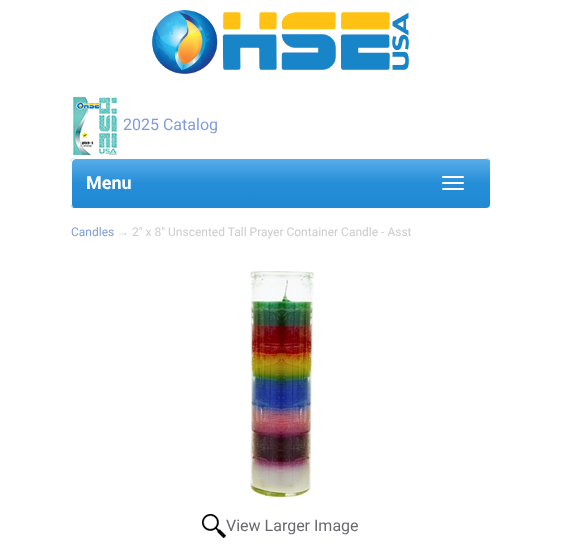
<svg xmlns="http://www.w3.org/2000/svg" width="561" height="558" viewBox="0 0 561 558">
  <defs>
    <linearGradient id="g1" gradientUnits="userSpaceOnUse" x1="281" y1="158" x2="281" y2="208"><stop offset="0" stop-color="#5aaee9"/><stop offset="0.5" stop-color="#268ed8"/><stop offset="1" stop-color="#2089d3"/></linearGradient>
  </defs>
  <rect width="100%" height="100%" fill="#ffffff"/>
  <image x="152" y="10" width="257" height="64" href="img1.png"/>
  <image x="73" y="95" width="46" height="62" href="img2.png"/>
  <text x="123" y="130" font-family="Roboto" font-size="16" fill="#809cdc">2025 Catalog</text>
  <rect x="71" y="158" width="419" height="50" rx="4" fill="url(#g1)"/>
  <path d="M76 159H487L489 160C489 159 487 158 486 158H75C73 158 71 160 71 162V204C71 205 72 207 73 207L72 205V163C72 161 74 159 76 159Z" fill="#ffffff"/>
  <text x="86" y="189" font-family="Roboto" font-size="18" font-weight="bold" fill="#ffffff">Menu</text>
  <rect x="442" y="176" width="22" height="2" rx="1" fill="#ffffff"/>
  <rect x="442" y="182" width="22" height="2" rx="1" fill="#ffffff"/>
  <rect x="442" y="188" width="22" height="2" rx="1" fill="#ffffff"/>
  <text x="71" y="236" font-family="Roboto" font-size="12" fill="#809cdc">Candles</text>
  <text x="117" y="236" font-family="Liberation Sans" font-size="12" fill="#cccccc">→</text>
  <text x="132" y="236" font-family="Roboto" font-size="12" fill="#cccccc">2" x 8" Unscented Tall Prayer Container Candle - Asst</text>
  <image x="250" y="271" width="64" height="228" href="img3.png"/>
  <image x="202" y="514" width="24" height="24" href="img4.png"/>
  <text x="226" y="531" font-family="Roboto" font-size="16" fill="#69696f">View Larger Image</text>
</svg>
